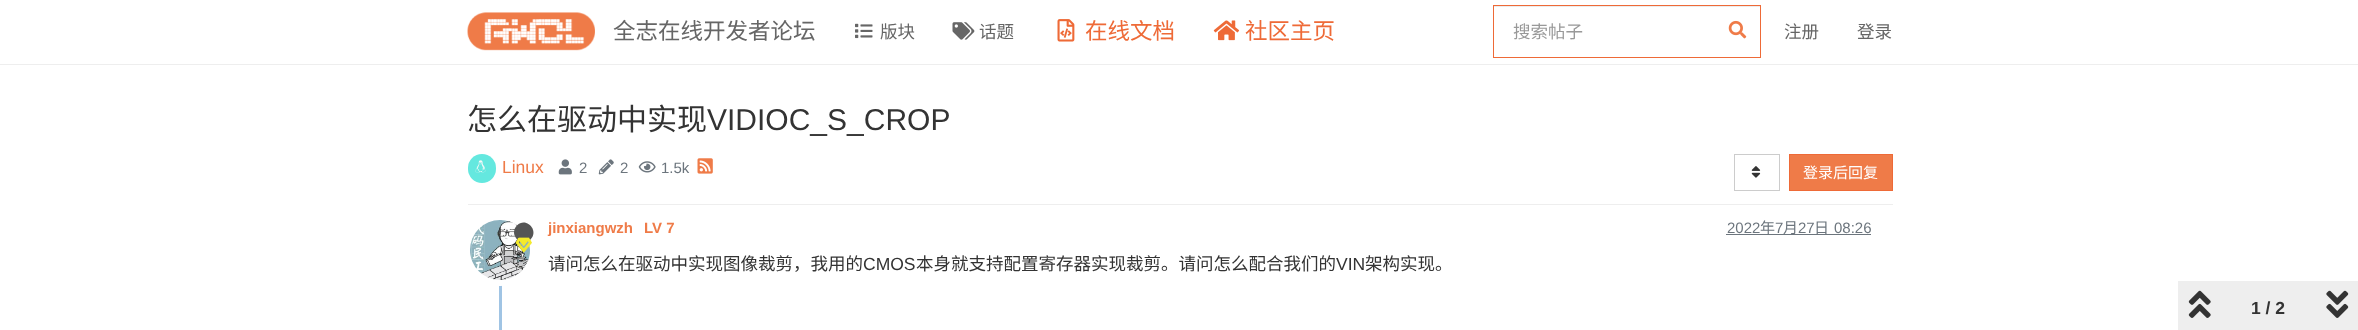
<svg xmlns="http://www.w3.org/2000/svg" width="2358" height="330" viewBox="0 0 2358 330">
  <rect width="100%" height="100%" fill="#ffffff"/>
  <rect x="0" y="64" width="2358" height="1" fill="#eeeeee"/>
  <image x="467" y="12" width="128" height="39" href="img1.png"/>
  <text x="613" y="39" font-family="Noto Sans CJK SC" font-size="22.5" fill="#666666">全志在线开发者论坛</text>
  <image x="855" y="23" width="18" height="16" href="img2.png"/>
  <text x="880" y="38" font-family="Noto Sans CJK SC" font-size="17.5" fill="#666666">版块</text>
  <image x="952" y="22" width="23" height="18" href="img3.png"/>
  <text x="979" y="38" font-family="Noto Sans CJK SC" font-size="17.5" fill="#666666">话题</text>
  <image x="1057" y="19" width="18" height="23" href="img4.png"/>
  <text x="1085" y="39" font-family="Noto Sans CJK SC" font-size="22.5" fill="#ee6a37">在线文档</text>
  <image x="1213" y="20" width="27" height="21" href="img5.png"/>
  <text x="1245" y="39" font-family="Noto Sans CJK SC" font-size="22.5" fill="#ee6a37">社区主页</text>
  <rect x="1494" y="6" width="266" height="1" fill="#ececec"/>
  <rect x="1493.5" y="5.5" width="267" height="52" fill="none" stroke="#ee6a37"/>
  <text x="1513" y="38" font-family="Noto Sans CJK SC" font-size="17.5" fill="#999999">搜索帖子</text>
  <image x="1728" y="20" width="19" height="19" href="img6.png"/>
  <text x="1784" y="38" font-family="Noto Sans CJK SC" font-size="17.5" fill="#666666">注册</text>
  <text x="1857" y="38" font-family="Noto Sans CJK SC" font-size="17.5" fill="#666666">登录</text>
  <text x="467" y="130" font-family="Noto Sans CJK SC" font-size="30" fill="#333333">怎么在驱动中实现</text>
  <text x="707" y="130" font-family="Liberation Sans" font-size="30" fill="#333333">VIDIOC_S_CROP</text>
  <rect x="468" y="204" width="1425" height="1" fill="#eeeeee"/>
  <rect x="468" y="154" width="28" height="29" rx="14" fill="#64e8df"/>
  <image x="475" y="160" width="11" height="13" href="img7.png"/>
  <text x="502" y="173" font-family="Liberation Sans" font-size="17.5" fill="#ef7b48">Linux</text>
  <image x="558" y="159" width="14" height="16" href="img8.png"/>
  <text x="579" y="173" font-family="Liberation Sans" font-size="15" fill="#6c757d">2</text>
  <image x="598" y="159" width="16" height="16" href="img9.png"/>
  <text x="620" y="173" font-family="Liberation Sans" font-size="15" fill="#6c757d">2</text>
  <image x="638" y="161" width="18" height="12" href="img10.png"/>
  <text x="661" y="173" font-family="Liberation Sans" font-size="15" fill="#6c757d">1.5k</text>
  <image x="697" y="158" width="16" height="16" href="img11.png"/>
  <rect x="1734.5" y="154.5" width="45" height="36" fill="none" stroke="#cccccc"/>
  <image x="1751" y="166" width="10" height="12" href="img12.png"/>
  <rect x="1789.5" y="154.5" width="103" height="36" fill="#ef7b48" stroke="#ee6a37"/>
  <text x="1803" y="178" font-family="Noto Sans CJK SC" font-size="15" fill="#ffffff">登录后回复</text>
  <rect x="499" y="218" width="3" height="112" fill="#a0c4e4"/>
  <circle cx="500" cy="250" r="33" fill="none" stroke="#ffffff" stroke-width="6"/>
  <image x="470" y="220" width="60" height="60" href="img13.png"/>
  <path d="M517 225.5C526 216.5 539.5 230.5 530.5 239.5C521.5 248.5 508 234.5 517 225.5Z" fill="#555555"/>
  <image x="515" y="237" width="17" height="16" href="img14.png"/>
  <text x="548" y="233" font-family="Liberation Sans" font-size="15" font-weight="bold" fill="#ef7b48">jinxiangwzh</text>
  <text x="644" y="233" font-family="Liberation Sans" font-size="15" font-weight="bold" fill="#ef7b48">LV 7</text>
  <text x="1727" y="233" font-family="Liberation Sans" font-size="15" fill="#6c757d">2022</text>
  <rect x="1726" y="234" width="145" height="1" fill="#6c757d"/>
  <text x="1760" y="233" font-family="Noto Sans CJK SC" font-size="15" fill="#6c757d">年</text>
  <text x="1775" y="233" font-family="Liberation Sans" font-size="15" fill="#6c757d">7</text>
  <text x="1783" y="233" font-family="Noto Sans CJK SC" font-size="15" fill="#6c757d">月</text>
  <text x="1798" y="233" font-family="Liberation Sans" font-size="15" fill="#6c757d">27</text>
  <text x="1814" y="233" font-family="Noto Sans CJK SC" font-size="15" fill="#6c757d">日</text>
  <text x="1834" y="233" font-family="Liberation Sans" font-size="15" fill="#6c757d">08:26</text>
  <text x="548" y="270" font-family="Noto Sans CJK SC" font-size="17.5" fill="#333333">请问怎么在驱动中实现图像裁剪，我用的</text>
  <text x="863" y="270" font-family="Liberation Sans" font-size="17.5" fill="#333333">CMOS</text>
  <text x="916" y="270" font-family="Noto Sans CJK SC" font-size="17.5" fill="#333333">本身就支持配置寄存器实现裁剪。请问怎么配合我们的</text>
  <text x="1336" y="270" font-family="Liberation Sans" font-size="17.5" fill="#333333">VIN</text>
  <text x="1365" y="270" font-family="Noto Sans CJK SC" font-size="17.5" fill="#333333">架构实现。</text>
  <rect x="2178" y="281" width="180" height="49" fill="#eeeeee"/>
  <image x="2188" y="290" width="23" height="28" href="img15.png"/>
  <text x="2251" y="314" font-family="Liberation Sans" font-size="17.5" font-weight="bold" fill="#333333">1 / 2</text>
  <image x="2326" y="290" width="23" height="28" href="img16.png"/>
</svg>
